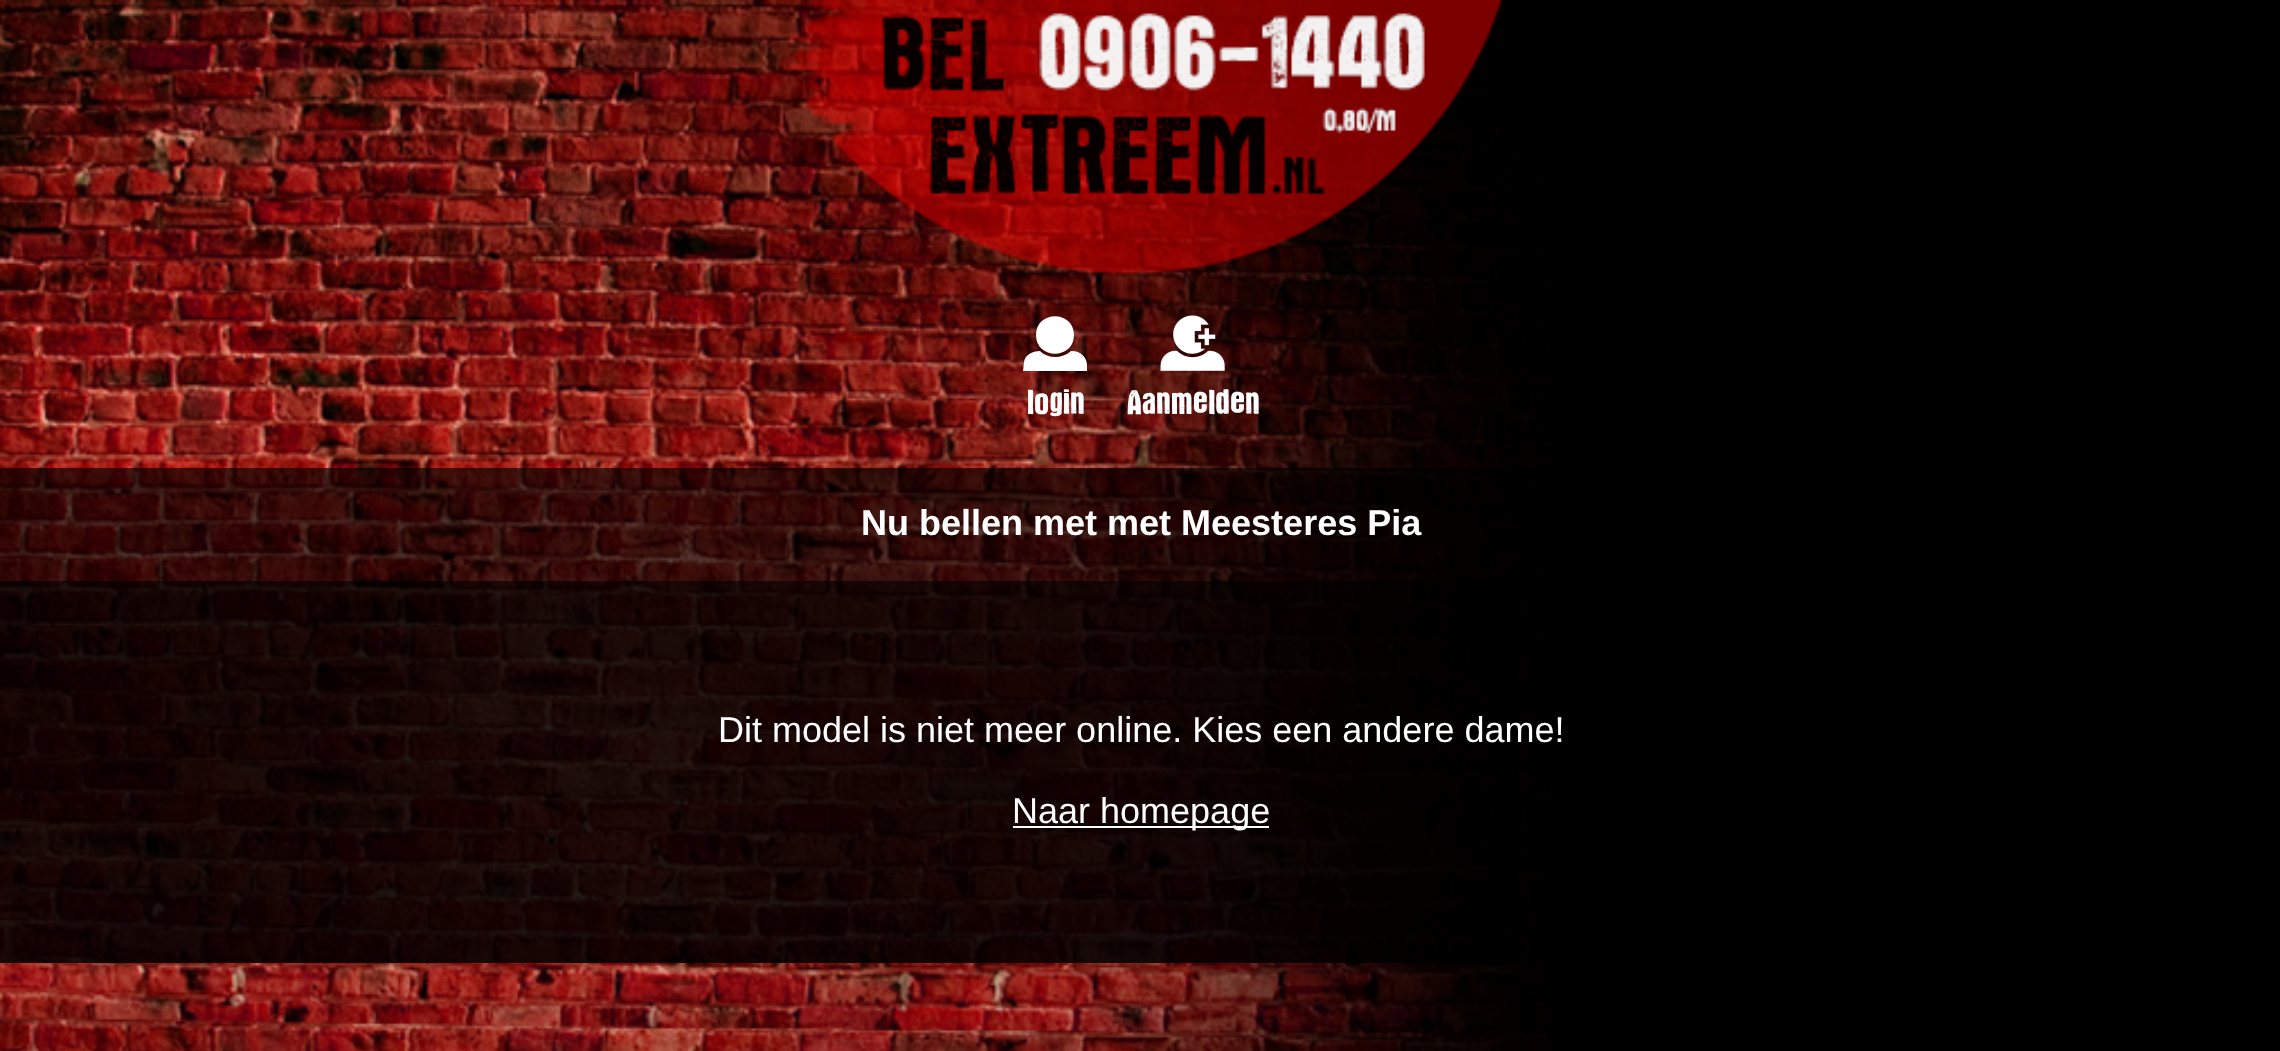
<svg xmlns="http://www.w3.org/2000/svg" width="2280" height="1051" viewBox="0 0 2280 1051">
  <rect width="100%" height="100%" fill="#000000"/>
  <image x="0" y="0" width="1555" height="1051" href="img1.png"/>
  <image x="780" y="0" width="723" height="275" href="img2.png"/>
  <path d="M1036 335C1036 310 1074 310 1074 335C1074 360 1036 360 1036 335ZM1072 351H1071C1062 359 1048 359 1040 351C1032 351 1025 355 1024 362L1023 371H1087V365C1087 357 1080 351 1072 351Z" fill="#ffffff" fill-rule="evenodd"/>
  <text x="1027" y="414" font-family="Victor" font-size="36" font-weight="900" fill="#ffffff">login</text>
  <image x="1160" y="315" width="65" height="56" href="img3.png"/>
  <text x="1127" y="414" font-family="Victor" font-size="36" font-weight="900" fill="#ffffff">Aanmelden</text>
  <rect x="0" y="468" width="1555" height="495" fill="#000000" fill-opacity="0.65"/>
  <text x="861" y="535" font-family="Liberation Sans" font-size="36" font-weight="bold" fill="#ffffff">Nu bellen met met Meesteres Pia</text>
  <rect x="0" y="581" width="1519" height="382" fill="#000000" fill-opacity="0.6"/>
  <text x="718" y="742" font-family="Liberation Sans" font-size="36" fill="#ffffff">Dit model is niet meer online. Kies een andere dame!</text>
  <rect x="1013" y="826" width="256" height="2" fill="#ffffff"/>
  <text x="1012" y="823" font-family="Liberation Sans" font-size="36" fill="#ffffff">Naar homepage</text>
</svg>
